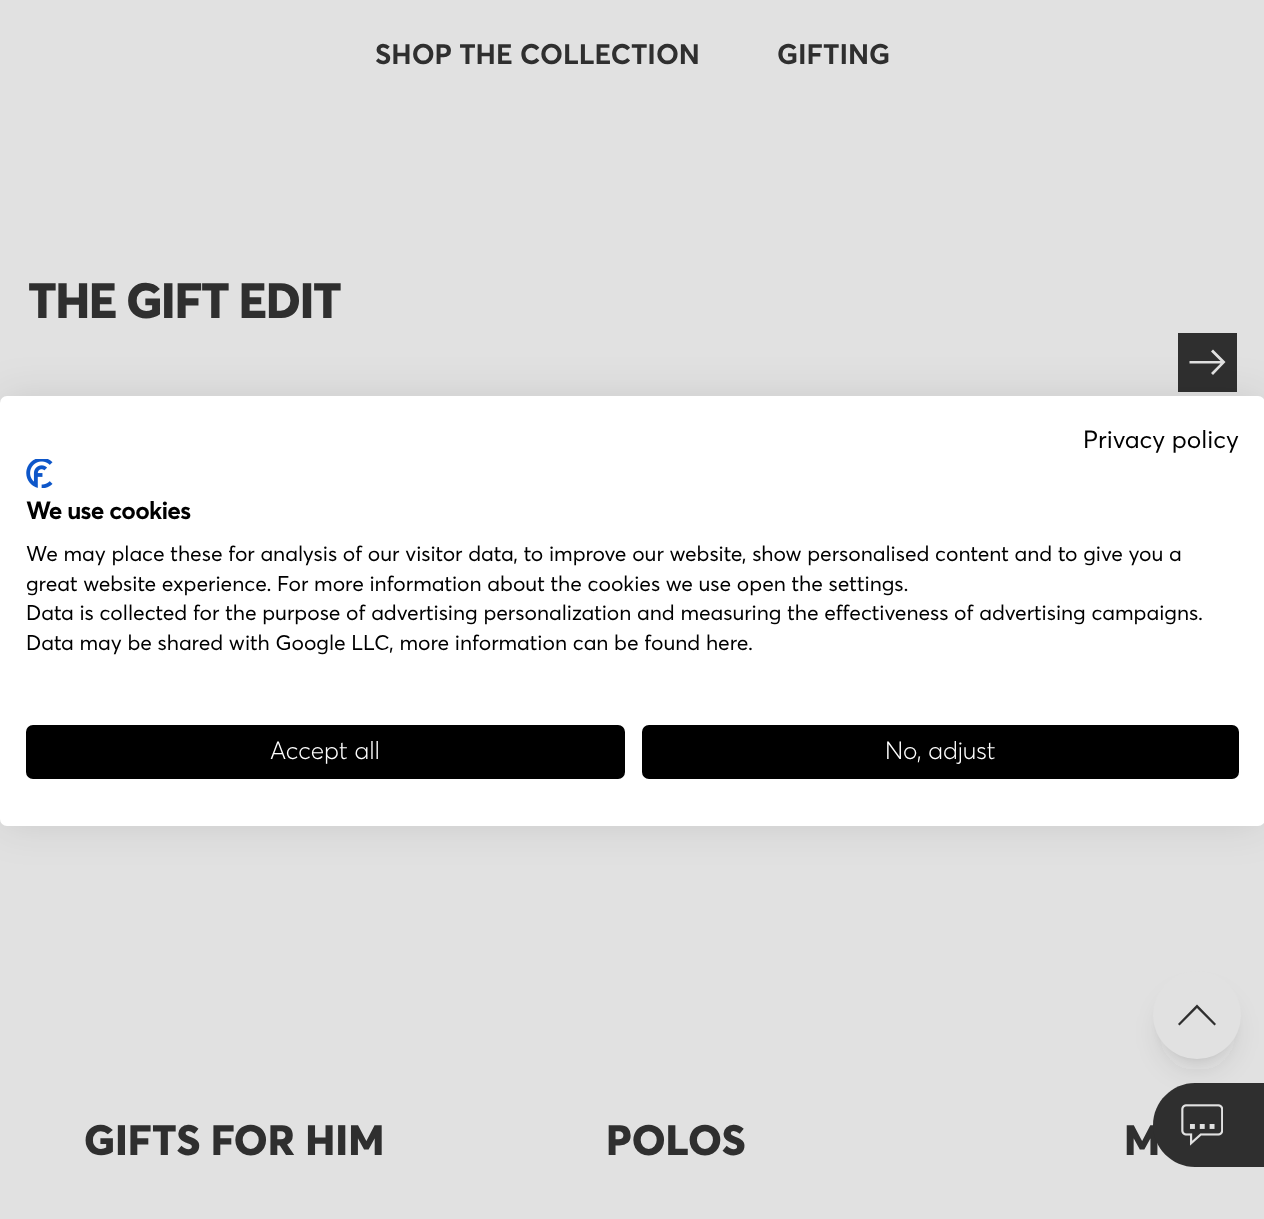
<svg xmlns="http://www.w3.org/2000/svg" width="1264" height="1219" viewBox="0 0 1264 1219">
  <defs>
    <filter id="blur1" x="-50%" y="-200%" width="200%" height="500%"><feGaussianBlur stdDeviation="5"/></filter>
    <filter id="blur2" x="-50%" y="-200%" width="200%" height="500%"><feGaussianBlur stdDeviation="13"/></filter>
    <filter id="blur3" x="-50%" y="-200%" width="200%" height="500%"><feGaussianBlur stdDeviation="21"/></filter>
  </defs>
  <rect width="100%" height="100%" fill="#e1e1e1"/>
  <text x="375" y="64" font-family="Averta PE" font-size="28" font-weight="bold" fill="#2f2f2f">SHOP THE COLLECTION</text>
  <text x="777" y="64" font-family="Averta PE" font-size="28" font-weight="bold" fill="#2f2f2f">GIFTING</text>
  <text x="28" y="318" font-family="Averta PE" font-size="49" font-weight="800" letter-spacing="-1.5" fill="#2f2f2f">THE GIFT EDIT</text>
  <rect x="1178" y="333" width="59" height="59" fill="#2f2f2f"/>
  <path d="M1213 349.5L1225.5 362L1213 375L1211 373L1220.5 363.5H1189.5V361H1220.5L1211 351.5Z" fill="#e1e1e1" fill-rule="evenodd"/>
  <text x="84" y="1155" font-family="Averta PE" font-size="42" font-weight="800" fill="#2f2f2f">GIFTS FOR HIM</text>
  <text x="606" y="1155" font-family="Averta PE" font-size="42" font-weight="800" fill="#2f2f2f">POLOS</text>
  <text x="1124" y="1155" font-family="Averta PE" font-size="42" font-weight="800" fill="#2f2f2f">M</text>
  <rect x="1160" y="985" width="74" height="74" rx="37" fill="#2f2f2f" fill-opacity="0.1" filter="url(#blur1)"/>
  <rect x="1159" y="994" width="77" height="77" rx="38.5" fill="#2f2f2f" fill-opacity="0.1" filter="url(#blur2)"/>
  <circle cx="1197" cy="1015" r="44" fill="#e1e1e1"/>
  <path d="M1178 1024L1179.5 1025.5L1197 1008L1214.5 1025.5L1216 1024L1197 1004.5L1195.5 1006Z" fill="#2f2f2f" fill-rule="evenodd"/>
  <path d="M1195 1083H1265V1167H1195C1172 1167 1153 1148 1153 1125C1153 1102 1172 1083 1195 1083Z" fill="#2f2f2f"/>
  <image x="1181" y="1104" width="42" height="42" href="img1.png"/>
  <rect x="0" y="396" width="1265" height="430" rx="7" fill="#000000" fill-opacity="0.1" filter="url(#blur3)"/>
  <rect x="0" y="396" width="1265" height="430" rx="7" fill="#ffffff"/>
  <text x="1083" y="448" font-family="Averta PE" font-size="24.5" fill="#000000">Privacy policy</text>
  <image x="26" y="459" width="27" height="29" href="img2.png"/>
  <text x="26" y="519" font-family="Averta PE" font-size="24.5" font-weight="bold" letter-spacing="-0.75" fill="#000000">We use cookies</text>
  <text x="26" y="561" font-family="Averta PE" font-size="21" fill="#000000">We may place these for analysis of our visitor data, to improve our website, show personalised content and to give you a</text>
  <text x="26" y="591" font-family="Averta PE" font-size="21" fill="#000000">great website experience. For more information about the cookies we use open the settings.</text>
  <text x="26" y="620" font-family="Averta PE" font-size="21" fill="#000000">Data is collected for the purpose of advertising personalization and measuring the effectiveness of advertising campaigns.</text>
  <text x="26" y="650" font-family="Averta PE" font-size="21" fill="#000000">Data may be shared with Google LLC, more information can be found here</text>
  <text x="748" y="650" font-family="Averta PE" font-size="21" fill="#000000">.</text>
  <rect x="27" y="726" width="597" height="52" rx="6" fill="#000000" stroke="#000000" stroke-width="2"/>
  <text x="270" y="759" font-family="Averta PE" font-size="24.5" font-weight="300" fill="#ffffff">Accept all</text>
  <rect x="643" y="726" width="595" height="52" rx="6" fill="#000000" stroke="#000000" stroke-width="2"/>
  <text x="885" y="759" font-family="Averta PE" font-size="24.5" font-weight="300" fill="#ffffff">No, adjust</text>
</svg>
